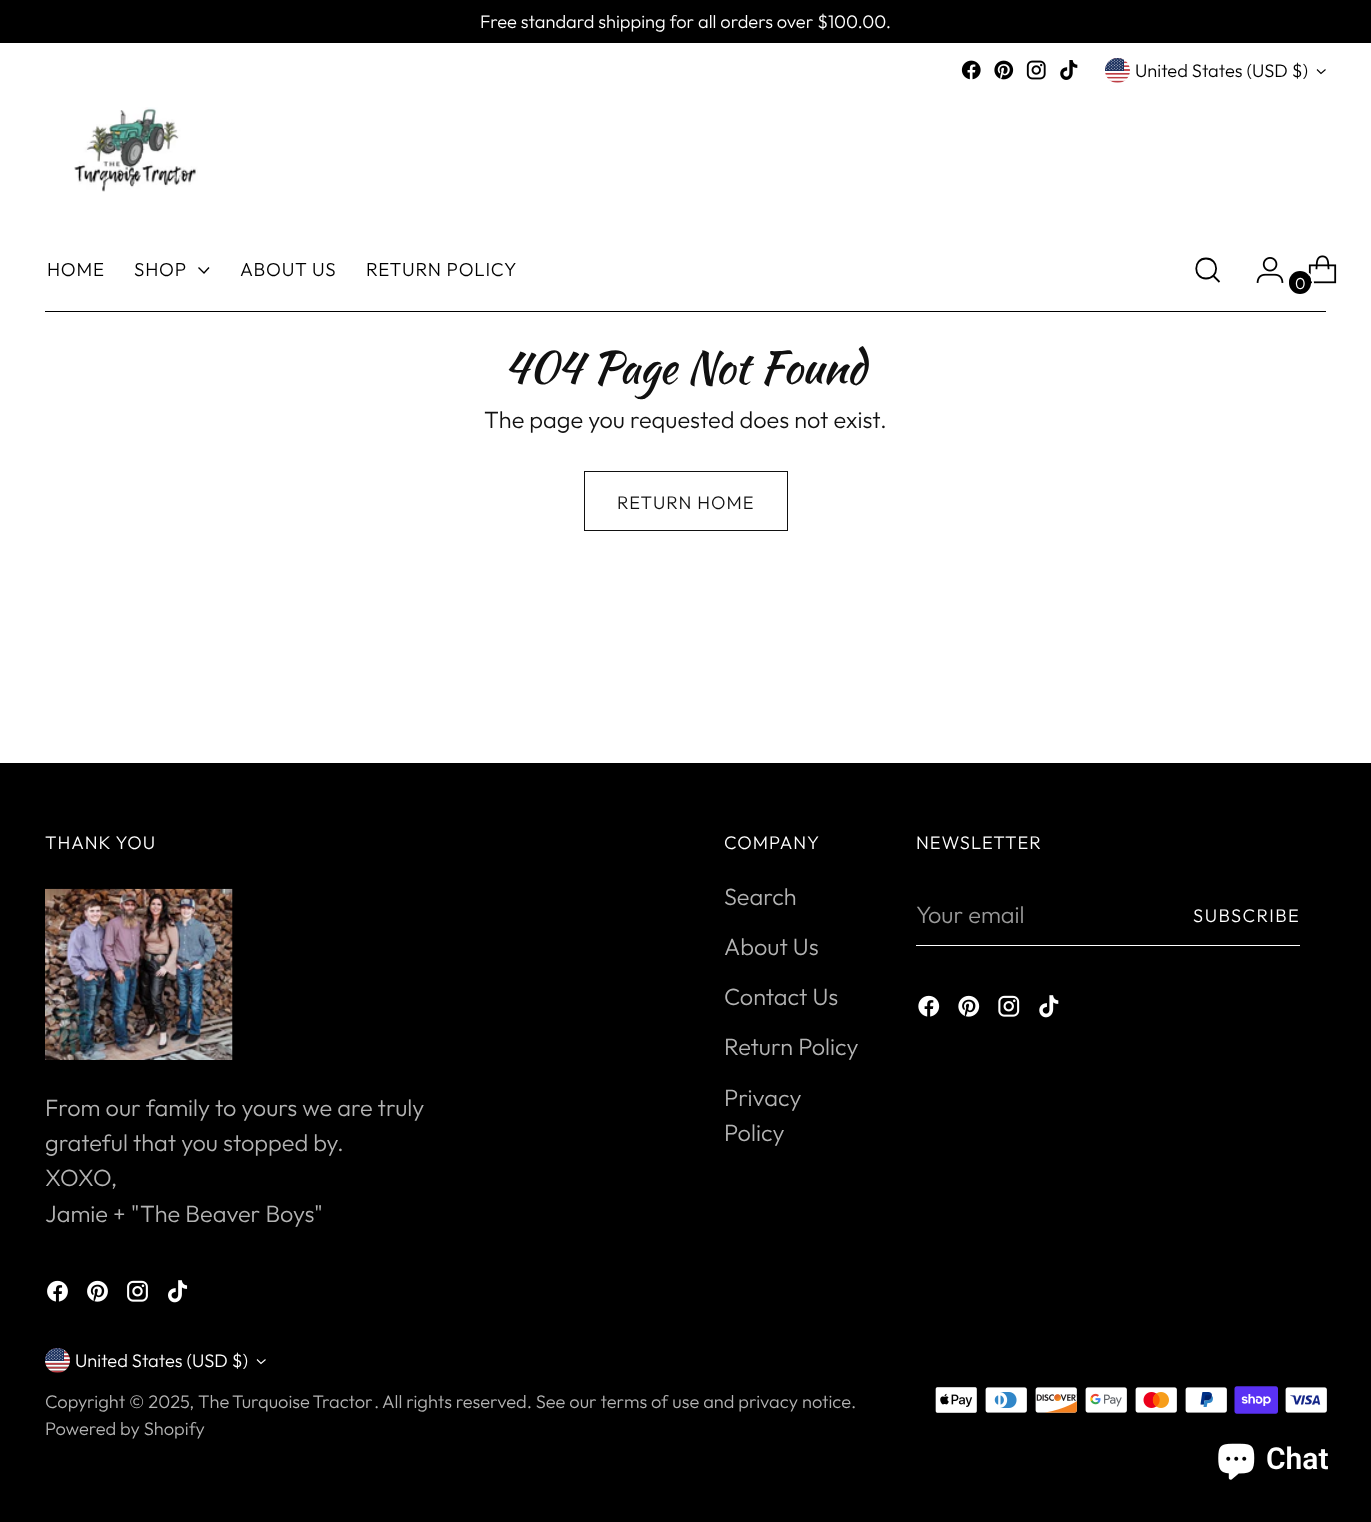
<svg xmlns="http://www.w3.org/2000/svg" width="1371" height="1522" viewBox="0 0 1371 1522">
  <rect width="100%" height="100%" fill="#ffffff"/>
  <rect x="0" y="0" width="1371" height="43" fill="#000000"/>
  <text x="480" y="28" font-family="Outfit" font-size="18.25" font-weight="300" fill="#ffffff">Free standard shipping for all orders over $100.00.</text>
  <rect x="45" y="311" width="1281" height="1" fill="#000000"/>
  <image x="961" y="60" width="20" height="20" href="img1.png"/>
  <image x="994" y="60" width="20" height="20" href="img2.png"/>
  <image x="1026" y="60" width="20" height="20" href="img3.png"/>
  <image x="1060" y="60" width="18" height="20" href="img4.png"/>
  <image x="1105" y="58" width="25" height="25" href="img5.png"/>
  <text x="1135" y="77" font-family="Outfit" font-size="18.25" font-weight="300" fill="#000000">United States (USD $)</text>
  <path d="M1317 69.5L1321 73.5L1325.5 69.5" fill="none" stroke="#000000" stroke-width="1.1"/>
  <image x="74" y="107" width="124" height="85" href="img6.png"/>
  <text x="47" y="276" font-family="Outfit" font-size="18.75" font-weight="300" letter-spacing="0.75" fill="#000000">HOME</text>
  <text x="134" y="276" font-family="Outfit" font-size="18.75" font-weight="300" letter-spacing="0.75" fill="#000000">SHOP</text>
  <path d="M198.5 267.5L204 273L209 267.5" fill="none" stroke="#000000" stroke-width="1.4"/>
  <text x="240" y="276" font-family="Outfit" font-size="18.75" font-weight="300" letter-spacing="0.75" fill="#000000">ABOUT US</text>
  <text x="366" y="276" font-family="Outfit" font-size="18.75" font-weight="300" letter-spacing="0.75" fill="#000000">RETURN POLICY</text>
  <path d="M1206 278.5C1219.5 278.5 1219.5 258.5 1206 258.5C1193 258.5 1193 278.5 1206 278.5Z" fill="none" stroke="#000000" stroke-width="1.8" stroke-linecap="round"/>
  <path d="M1213.5 276L1219.5 282" fill="none" stroke="#000000" stroke-width="1.8"/>
  <image x="1256" y="257" width="28" height="26" href="img7.png"/>
  <image x="1308" y="255" width="29" height="29" href="img8.png"/>
  <circle cx="1301" cy="283" r="12" fill="none" stroke="#ffffff" stroke-width="2"/>
  <rect x="1289" y="271" width="22" height="23" rx="11" fill="#000000"/>
  <text x="1295" y="289" font-family="Outfit" font-size="16" font-weight="300" fill="#ffffff">0</text>
  <text x="504" y="383" font-family="Kaushan Script" font-size="44.5" letter-spacing="-0.5" fill="#111111">404 Page Not Found</text>
  <text x="484" y="428" font-family="Outfit" font-size="23.5" font-weight="300" fill="#111111">The page you requested does not exist.</text>
  <rect x="584.5" y="471.5" width="203" height="59" fill="none" stroke="#111111"/>
  <text x="617" y="509" font-family="Outfit" font-size="18.25" font-weight="300" letter-spacing="1" fill="#111111">RETURN HOME</text>
  <rect x="0" y="763" width="1371" height="759" fill="#000000"/>
  <text x="45" y="849" font-family="Outfit" font-size="18.25" font-weight="300" letter-spacing="1" fill="#ffffff">THANK YOU</text>
  <image x="45" y="888" width="188" height="172" href="img9.png"/>
  <text x="45" y="1116" font-family="Outfit" font-size="23.5" font-weight="300" fill="#b3b3b3">From our family to yours we are truly</text>
  <text x="45" y="1151" font-family="Outfit" font-size="23.5" font-weight="300" fill="#b3b3b3">grateful that you stopped by.</text>
  <text x="45" y="1186" font-family="Outfit" font-size="23.5" font-weight="300" fill="#b3b3b3">XOXO,</text>
  <text x="45" y="1222" font-family="Outfit" font-size="23.5" font-weight="300" fill="#b3b3b3">Jamie + "The Beaver Boys"</text>
  <image x="47" y="1280" width="21" height="22" href="img10.png"/>
  <image x="87" y="1280" width="21" height="22" href="img11.png"/>
  <image x="127" y="1280" width="21" height="22" href="img12.png"/>
  <image x="168" y="1280" width="20" height="23" href="img13.png"/>
  <text x="724" y="849" font-family="Outfit" font-size="18.25" font-weight="300" letter-spacing="1" fill="#ffffff">COMPANY</text>
  <text x="724" y="905" font-family="Outfit" font-size="23.5" font-weight="300" fill="#b3b3b3">Search</text>
  <text x="724" y="955" font-family="Outfit" font-size="23.5" font-weight="300" fill="#b3b3b3">About Us</text>
  <text x="724" y="1005" font-family="Outfit" font-size="23.5" font-weight="300" fill="#b3b3b3">Contact Us</text>
  <text x="724" y="1055" font-family="Outfit" font-size="23.5" font-weight="300" fill="#b3b3b3">Return Policy</text>
  <text x="724" y="1106" font-family="Outfit" font-size="23.5" font-weight="300" fill="#b3b3b3">Privacy</text>
  <text x="724" y="1141" font-family="Outfit" font-size="23.5" font-weight="300" fill="#b3b3b3">Policy</text>
  <text x="916" y="849" font-family="Outfit" font-size="18.25" font-weight="300" letter-spacing="1" fill="#ffffff">NEWSLETTER</text>
  <rect x="916" y="945" width="384" height="1" fill="#ffffff"/>
  <text x="916" y="923" font-family="Outfit" font-size="23.5" font-weight="300" fill="#999999">Your email</text>
  <text x="1193" y="922" font-family="Outfit" font-size="18.25" font-weight="300" letter-spacing="1.4" fill="#ffffff">SUBSCRIBE</text>
  <image x="918" y="995" width="22" height="22" href="img14.png"/>
  <image x="958" y="995" width="22" height="22" href="img15.png"/>
  <image x="998" y="995" width="22" height="22" href="img16.png"/>
  <image x="1039" y="995" width="20" height="23" href="img17.png"/>
  <image x="45" y="1348" width="25" height="25" href="img18.png"/>
  <text x="75" y="1367" font-family="Outfit" font-size="18.25" font-weight="300" fill="#ffffff">United States (USD $)</text>
  <path d="M257 1359.5L261 1363.5L265.5 1359.5" fill="none" stroke="#ffffff" stroke-width="1.1"/>
  <text x="45" y="1408" font-family="Outfit" font-size="18.25" font-weight="300" fill="#b3b3b3">Copyright © 2025,</text>
  <text x="198" y="1408" word-spacing="-1" font-family="Outfit" font-size="18.25" font-weight="300" fill="#b3b3b3">The Turquoise Tractor</text>
  <text x="374" y="1408" font-family="Outfit" font-size="18.25" font-weight="300" fill="#b3b3b3">.</text>
  <text x="382" y="1408" font-family="Outfit" font-size="18.25" font-weight="300" fill="#b3b3b3">All rights reserved. See our terms of use and privacy notice.</text>
  <text x="45" y="1435" font-family="Outfit" font-size="18.25" font-weight="300" fill="#b3b3b3">Powered by Shopify</text>
  <image x="935" y="1387" width="42" height="26" href="img19.png"/>
  <image x="985" y="1387" width="42" height="26" href="img20.png"/>
  <image x="1035" y="1387" width="42" height="26" href="img21.png"/>
  <image x="1085" y="1387" width="42" height="26" href="img22.png"/>
  <image x="1135" y="1387" width="42" height="26" href="img23.png"/>
  <image x="1185" y="1387" width="42" height="26" href="img24.png"/>
  <image x="1234" y="1386" width="44" height="28" href="img25.png"/>
  <image x="1285" y="1387" width="42" height="26" href="img26.png"/>
  <image x="1218" y="1443" width="37" height="37" href="img27.png"/>
  <text x="1266" y="1469" font-family="Roboto" font-size="30" font-weight="600" fill="#ffffff">Chat</text>
</svg>
